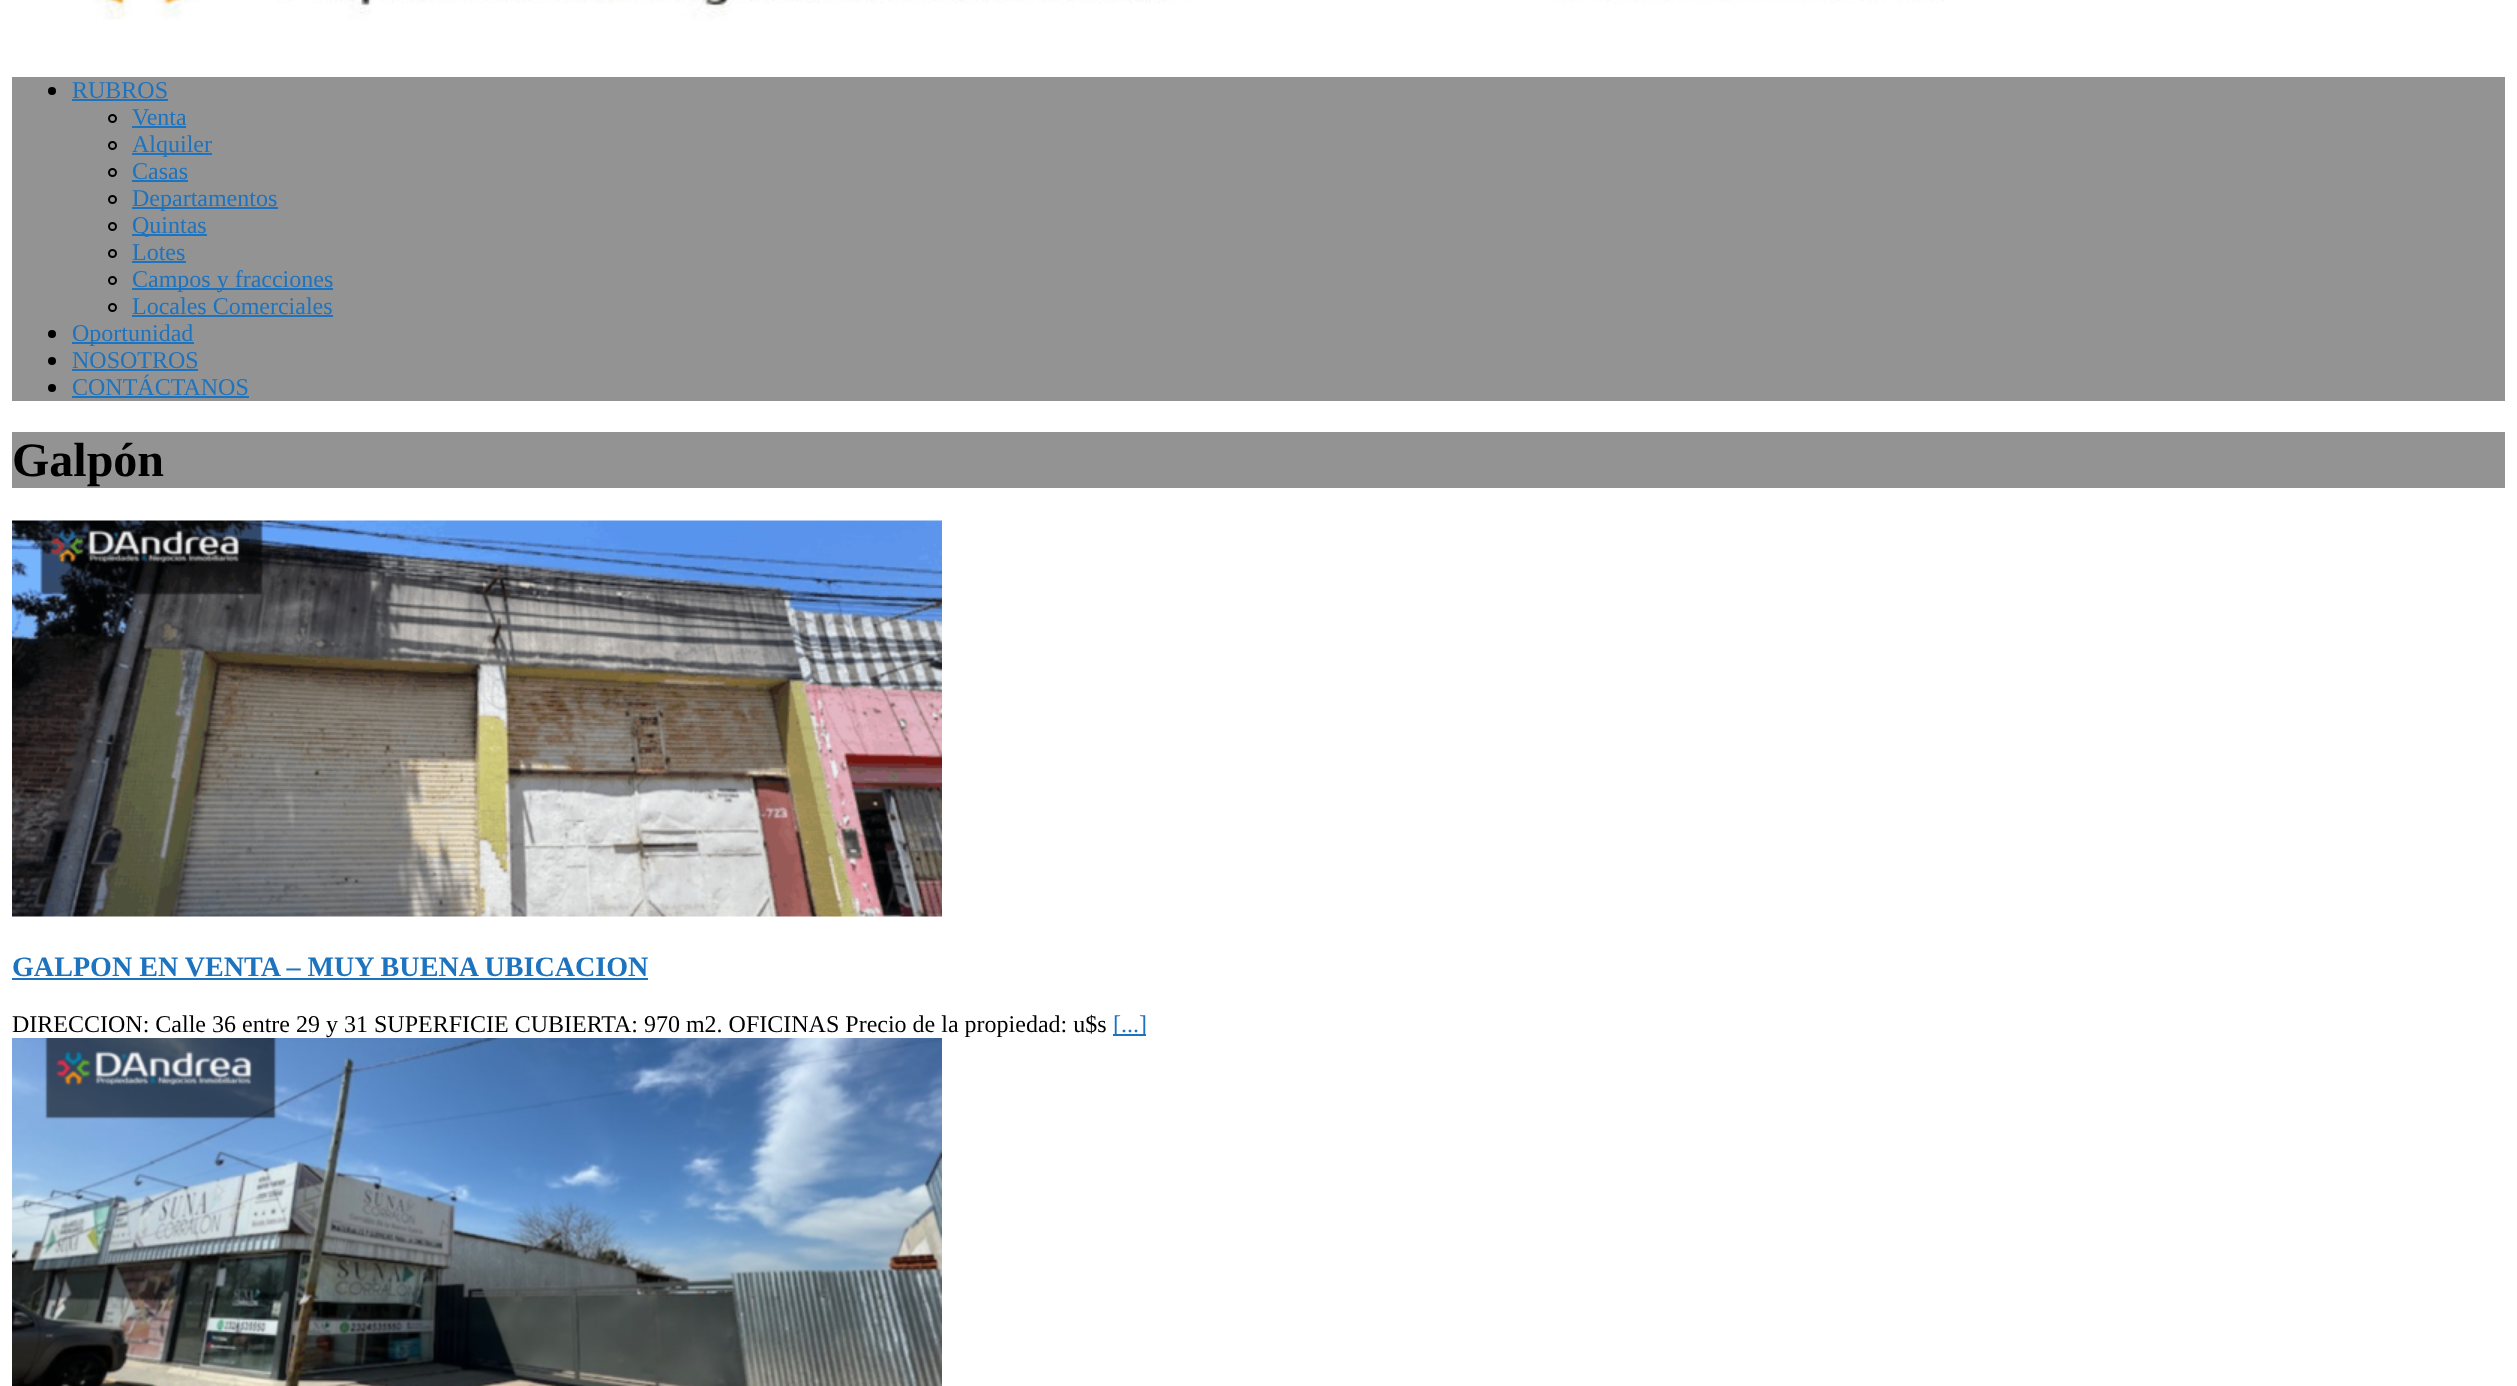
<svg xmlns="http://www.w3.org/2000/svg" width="2517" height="1386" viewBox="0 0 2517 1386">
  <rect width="100%" height="100%" fill="#ffffff"/>
  <image x="92" y="0" width="1852" height="20" href="img1.png"/>
  <rect x="12" y="77" width="2493" height="324" fill="#939393"/>
  <circle cx="52" cy="91" r="4" fill="#000000"/>
  <text x="72" y="98" font-family="Liberation Serif" font-size="24" fill="#1e73be">RUBROS</text>
  <rect x="72" y="99" width="96" height="2" fill="#1e73be"/>
  <circle cx="112.5" cy="118.5" r="3.5" fill="none" stroke="#000000" stroke-width="2"/>
  <text x="132" y="125" font-family="Liberation Serif" font-size="24" fill="#1e73be">Venta</text>
  <rect x="132" y="126" width="54" height="2" fill="#1e73be"/>
  <circle cx="112.5" cy="145.5" r="3.5" fill="none" stroke="#000000" stroke-width="2"/>
  <rect x="132" y="153" width="80" height="2" fill="#1e73be"/>
  <text x="132" y="152" font-family="Liberation Serif" font-size="24" fill="#1e73be">Alquiler</text>
  <circle cx="112.5" cy="172.5" r="3.5" fill="none" stroke="#000000" stroke-width="2"/>
  <text x="132" y="179" font-family="Liberation Serif" font-size="24" fill="#1e73be">Casas</text>
  <rect x="132" y="180" width="56" height="2" fill="#1e73be"/>
  <circle cx="112.5" cy="199.5" r="3.5" fill="none" stroke="#000000" stroke-width="2"/>
  <rect x="132" y="207" width="146" height="2" fill="#1e73be"/>
  <text x="132" y="206" font-family="Liberation Serif" font-size="24" fill="#1e73be">Departamentos</text>
  <circle cx="112.5" cy="226.5" r="3.5" fill="none" stroke="#000000" stroke-width="2"/>
  <rect x="132" y="234" width="75" height="2" fill="#1e73be"/>
  <text x="132" y="233" font-family="Liberation Serif" font-size="24" fill="#1e73be">Quintas</text>
  <circle cx="112.5" cy="253.5" r="3.5" fill="none" stroke="#000000" stroke-width="2"/>
  <text x="132" y="260" font-family="Liberation Serif" font-size="24" fill="#1e73be">Lotes</text>
  <rect x="132" y="261" width="54" height="2" fill="#1e73be"/>
  <circle cx="112.5" cy="280.5" r="3.5" fill="none" stroke="#000000" stroke-width="2"/>
  <rect x="132" y="288" width="201" height="2" fill="#1e73be"/>
  <text x="132" y="287" font-family="Liberation Serif" font-size="24" fill="#1e73be">Campos y fracciones</text>
  <circle cx="112.5" cy="307.5" r="3.5" fill="none" stroke="#000000" stroke-width="2"/>
  <text x="132" y="314" font-family="Liberation Serif" font-size="24" fill="#1e73be">Locales Comerciales</text>
  <rect x="132" y="315" width="201" height="2" fill="#1e73be"/>
  <circle cx="52" cy="334" r="4" fill="#000000"/>
  <rect x="72" y="342" width="122" height="2" fill="#1e73be"/>
  <text x="72" y="341" font-family="Liberation Serif" font-size="24" fill="#1e73be">Oportunidad</text>
  <circle cx="52" cy="361" r="4" fill="#000000"/>
  <text x="72" y="368" font-family="Liberation Serif" font-size="24" fill="#1e73be">NOSOTROS</text>
  <rect x="72" y="369" width="126" height="2" fill="#1e73be"/>
  <circle cx="52" cy="388" r="4" fill="#000000"/>
  <text x="72" y="395" font-family="Liberation Serif" font-size="24" fill="#1e73be">CONTÁCTANOS</text>
  <rect x="72" y="396" width="177" height="2" fill="#1e73be"/>
  <rect x="12" y="432" width="2493" height="56" fill="#939393"/>
  <text x="12" y="476" font-family="Liberation Serif" font-size="48" font-weight="bold" fill="#000000">Galpón</text>
  <image x="12" y="520" width="930" height="397" href="img2.png"/>
  <text x="12" y="976" font-family="Liberation Serif" font-size="28.1" font-weight="bold" fill="#1e73be">GALPON EN VENTA – MUY BUENA UBICACION</text>
  <rect x="12" y="978" width="636" height="2" fill="#1e73be"/>
  <text x="12" y="1032" font-family="Liberation Serif" font-size="24" fill="#000000">DIRECCION: Calle 36 entre 29 y 31 SUPERFICIE CUBIERTA: 970 m2. OFICINAS Precio de la propiedad: u$s</text>
  <rect x="1113" y="1034" width="33" height="2" fill="#1e73be"/>
  <text x="1113" y="1032" font-family="Liberation Serif" font-size="24" fill="#1e73be">[...]</text>
  <image x="12" y="1038" width="930" height="348" href="img3.png"/>
</svg>
